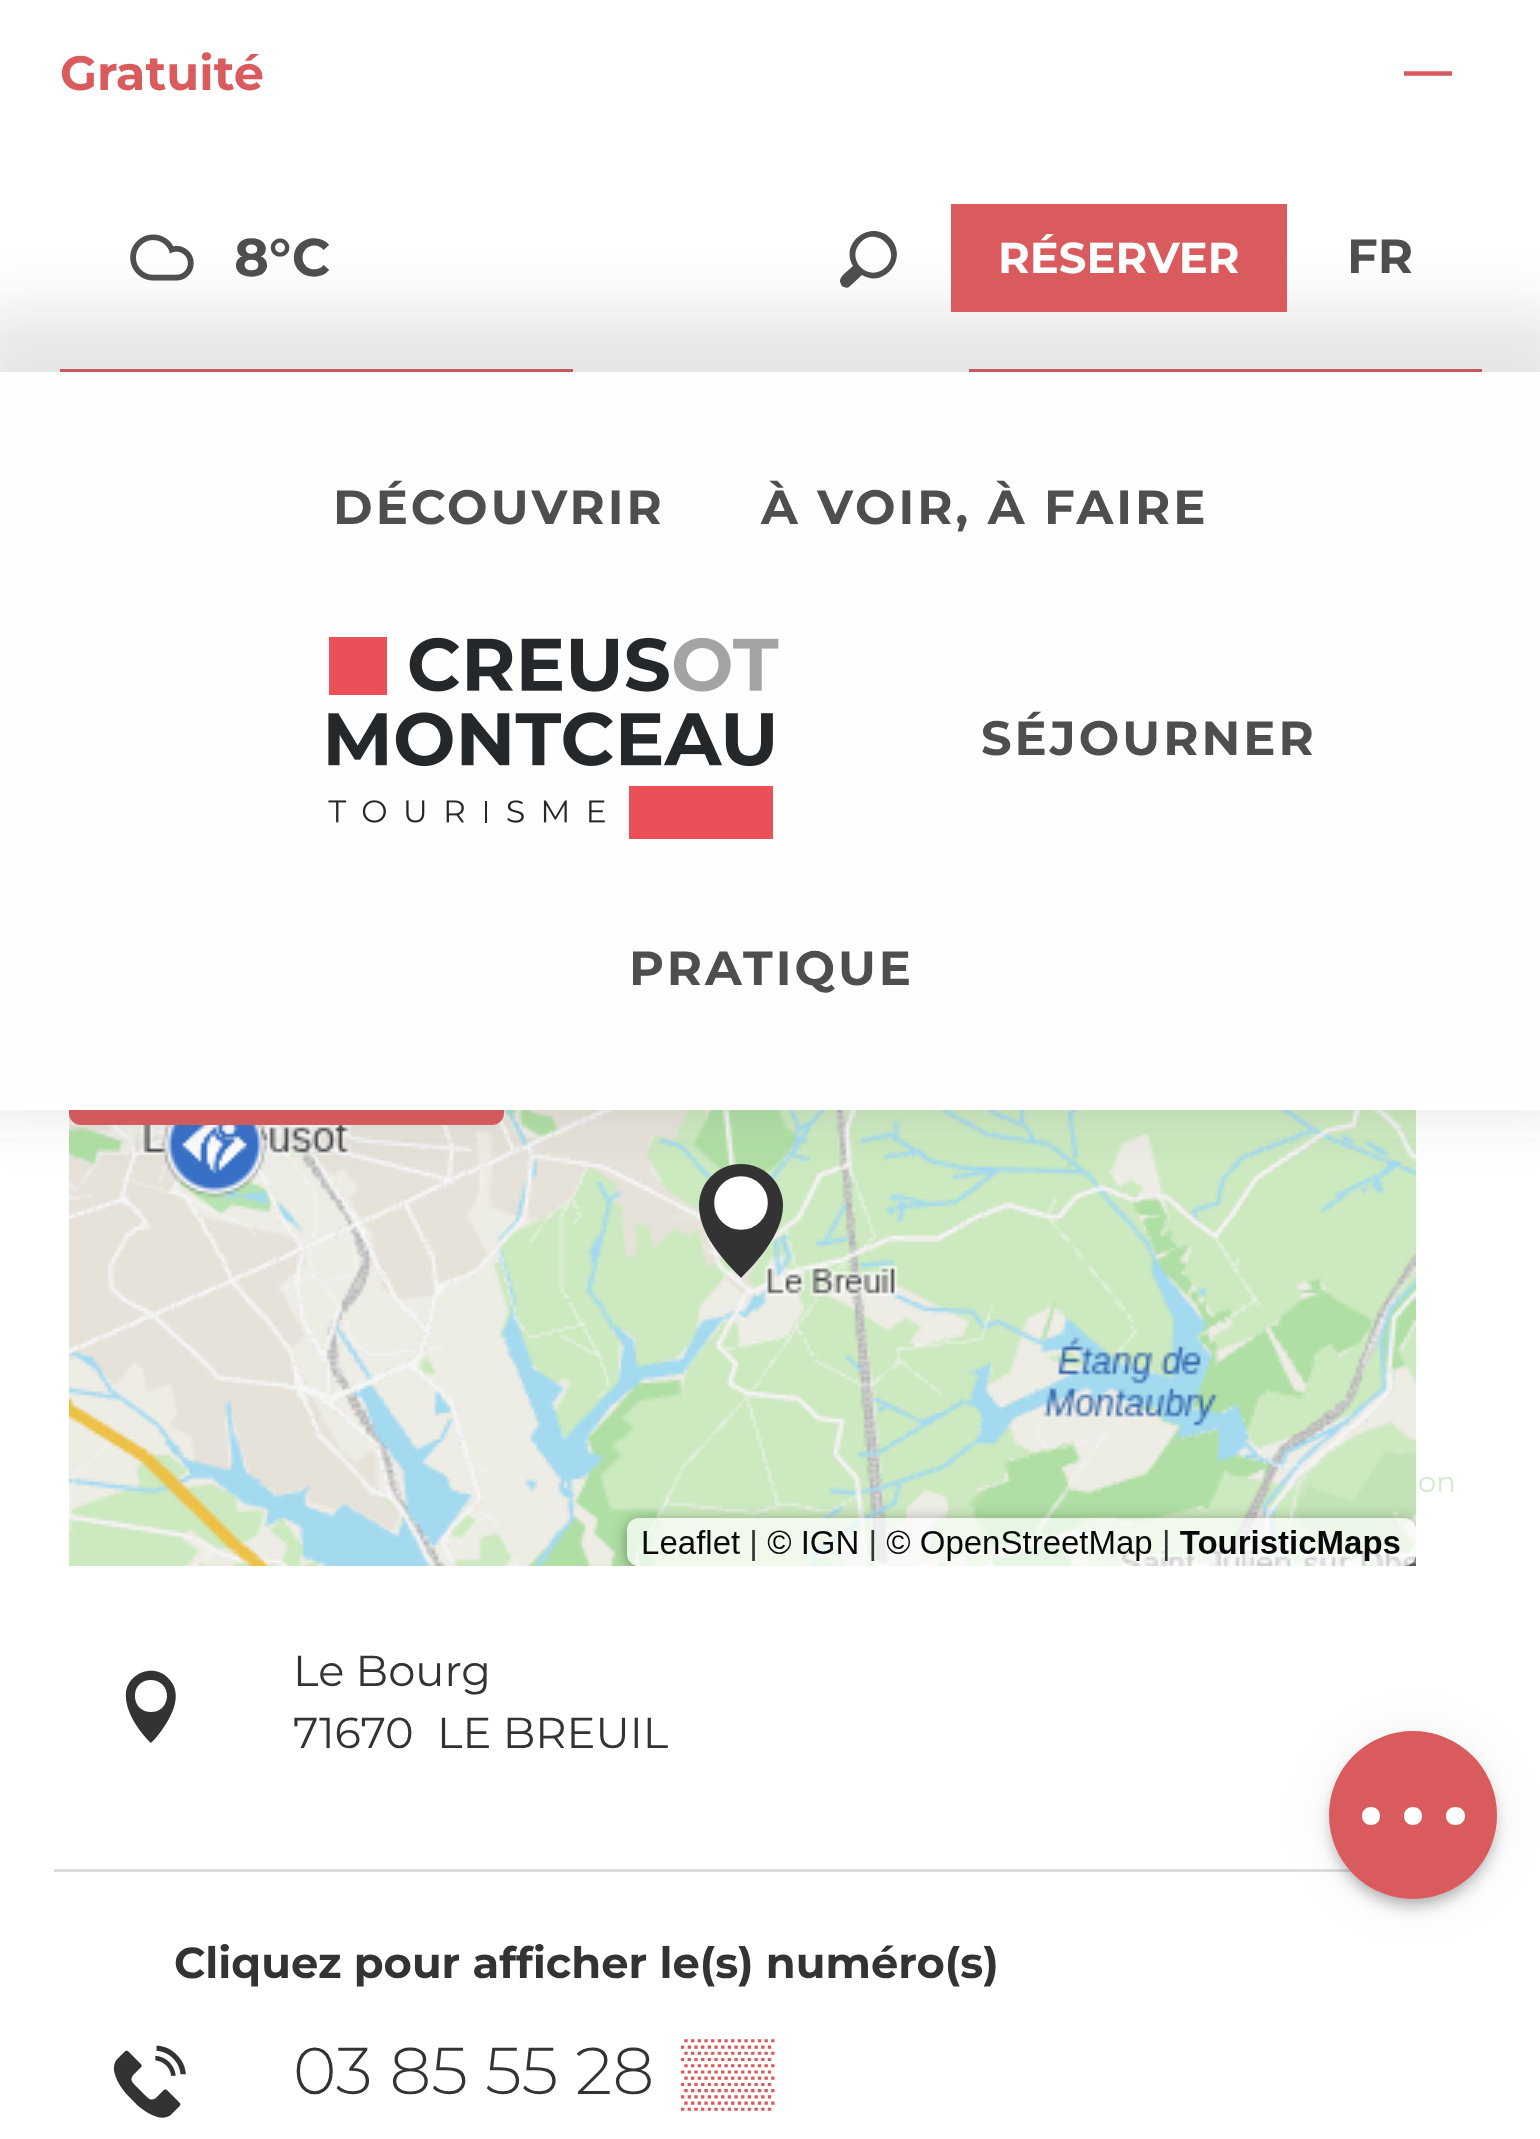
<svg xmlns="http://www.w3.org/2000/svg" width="1540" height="2139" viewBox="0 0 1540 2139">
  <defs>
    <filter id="blur1" x="-50%" y="-200%" width="200%" height="500%"><feGaussianBlur stdDeviation="7.5"/></filter>
    <filter id="blur2" x="-50%" y="-200%" width="200%" height="500%"><feGaussianBlur stdDeviation="27"/></filter>
    <filter id="blur3" x="-50%" y="-200%" width="200%" height="500%"><feGaussianBlur stdDeviation="30"/></filter>
  </defs>
  <rect width="100%" height="100%" fill="#ffffff"/>
  <text x="60" y="90" font-family="Montserrat" font-size="48" font-weight="bold" fill="#d95b5d">Gratuité</text>
  <text x="1404" y="87" font-family="Montserrat" font-size="48" font-weight="bold" fill="#d95b5d">—</text>
  <rect x="60" y="369" width="1422" height="3" fill="#d95b5d"/>
  <rect x="573" y="369" width="396" height="3" fill="#ffffff"/>
  <image x="69" y="1110" width="1347" height="456" href="img1.png"/>
  <rect x="69" y="996" width="435" height="129" rx="12" fill="#d95b5d"/>
  <path d="M151 1743C138 1731 124 1709 126 1692C129 1672 155 1663 169 1679C175 1685 177 1694 175 1703C173 1715 160 1735 151 1743ZM135 1694C133 1716 165 1719 167 1697C168 1676 137 1674 135 1694Z" fill="#333333"/>
  <text x="293" y="1686" font-family="Montserrat" font-size="43.25" fill="#333333">Le Bourg</text>
  <text x="293" y="1748" font-family="Montserrat" font-size="43.25" fill="#333333">71670</text>
  <text x="437" y="1748" font-family="Montserrat" font-size="43.25" fill="#333333">LE BREUIL</text>
  <rect x="54" y="1869" width="1298" height="3" fill="#dddddd"/>
  <text x="174" y="1978" font-family="Montserrat" font-size="43.25" font-weight="bold" fill="#333333">Cliquez pour afficher le(s) numéro(s)</text>
  <image x="113" y="2045" width="73" height="73" href="img2.png"/>
  <text x="293" y="2094" font-family="Montserrat" font-size="66" font-weight="300" fill="#333333">03 85 55 28</text>
  <text x="681" y="2094" font-family="Liberation Serif" font-size="66" fill="#d95b5d">▒▒</text>
  <text x="1418" y="1492" font-family="Montserrat" font-size="29" fill="#d4eccb">on</text>
  <rect x="1332" y="1743" width="162" height="162" rx="81" fill="#000000" fill-opacity="0.3" filter="url(#blur1)"/>
  <rect x="1329" y="1734" width="168" height="168" rx="84" fill="#000000" fill-opacity="0.06" filter="url(#blur2)"/>
  <circle cx="1413" cy="1815" r="82.5" fill="#d95b5d" stroke="#d95b5d" stroke-width="3"/>
  <path d="M1380 1816C1380 1828 1362 1828 1362 1816C1362 1804 1380 1804 1380 1816ZM1422 1816C1422 1828 1404 1828 1404 1816C1404 1804 1422 1804 1422 1816ZM1465 1816C1465 1828 1446 1828 1446 1816C1446 1804 1465 1804 1465 1816Z" fill="#ffffff"/>
  <rect x="-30" y="312" width="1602" height="798" fill="#4e4e4f" fill-opacity="0.15" filter="url(#blur3)"/>
  <image x="130" y="234" width="64" height="47" href="img3.png"/>
  <text x="234" y="276" font-family="Montserrat" font-size="53" font-weight="bold" fill="#4e4e4f">8°C</text>
  <path d="M890 238C871 219 839 243 853 266L845 273C842 276 838 280 841 284C841 286 843 287 844 287C846 288 848 288 849 287L862 275C885 289 909 257 890 238ZM886 267C869 284 844 259 861 242C877 226 902 251 886 267Z" fill="#4e4e4f"/>
  <rect x="951" y="204" width="336" height="108" fill="#d95b5d"/>
  <text x="998" y="273" font-family="Montserrat" font-size="43.25" font-weight="bold" fill="#fefefe">RÉSERVER</text>
  <text x="1347" y="273" font-family="Montserrat" font-size="48" font-weight="bold" fill="#4e4e4f">FR</text>
  <rect x="0" y="372" width="1540" height="738" fill="#fefefe"/>
  <text x="333" y="524" font-family="Montserrat" font-size="48" font-weight="bold" letter-spacing="3" fill="#4e4e4f">DÉCOUVRIR</text>
  <text x="761" y="524" font-family="Montserrat" font-size="48" font-weight="bold" letter-spacing="3" fill="#4e4e4f">À VOIR, À FAIRE</text>
  <image x="328" y="637" width="451" height="202" href="img4.png"/>
  <text x="981" y="755" font-family="Montserrat" font-size="48" font-weight="bold" letter-spacing="3" fill="#4e4e4f">SÉJOURNER</text>
  <text x="629" y="985" font-family="Montserrat" font-size="48" font-weight="bold" letter-spacing="3" fill="#4e4e4f">PRATIQUE</text>
</svg>
